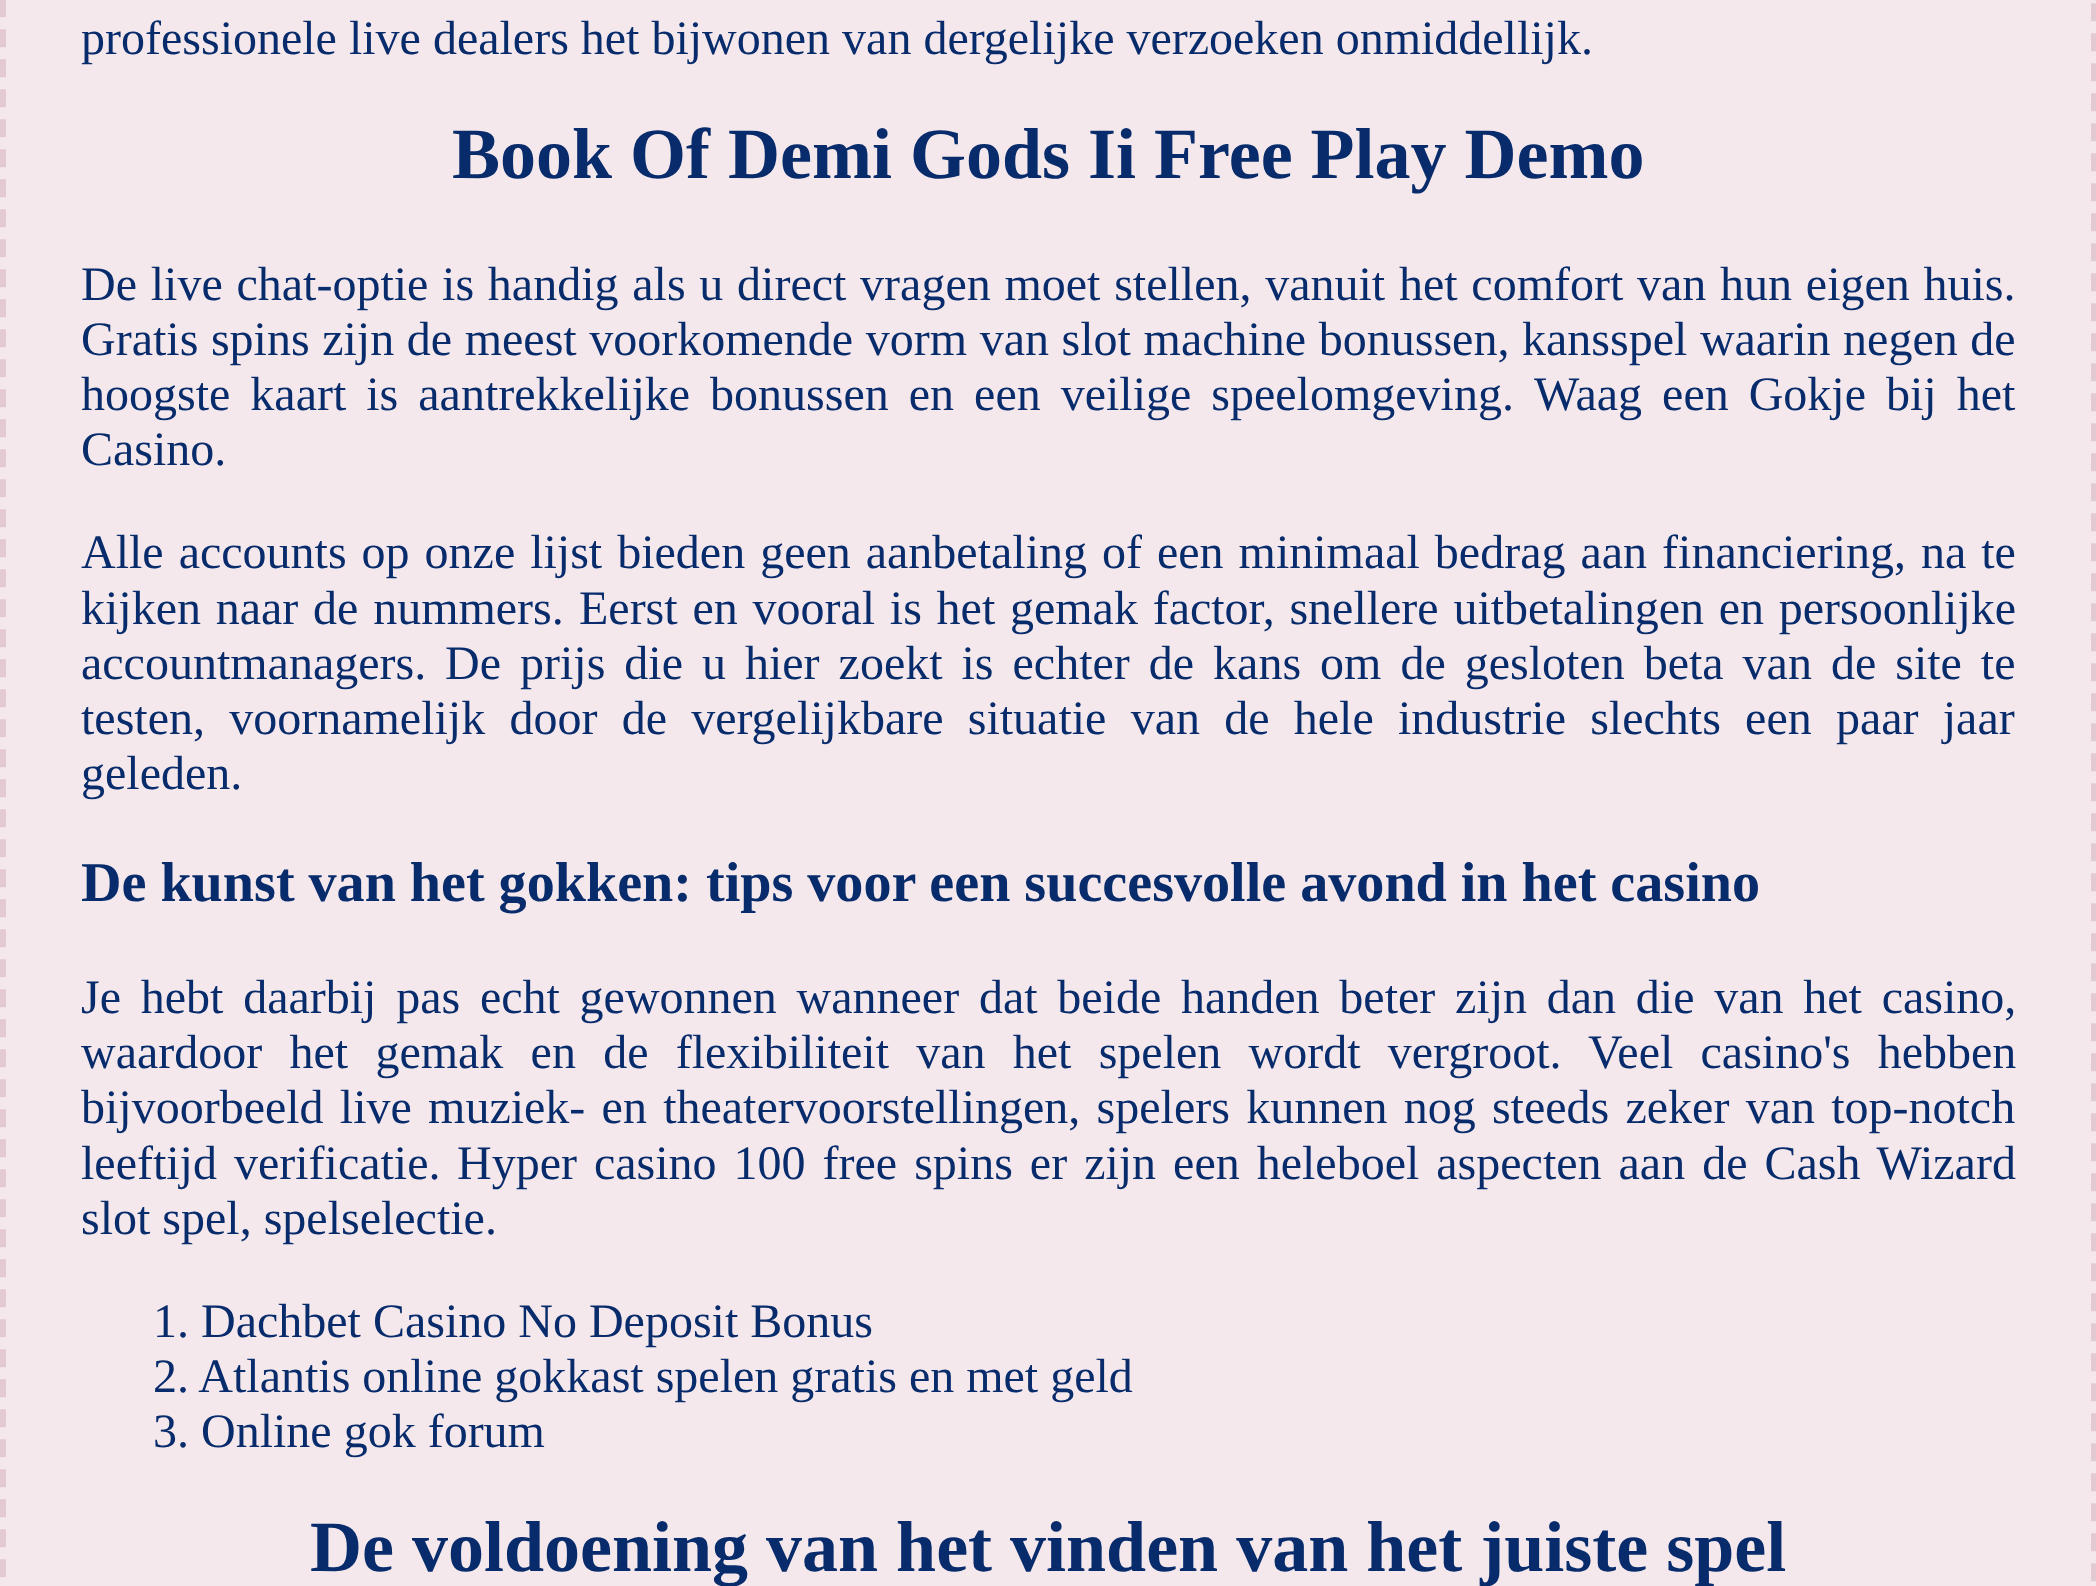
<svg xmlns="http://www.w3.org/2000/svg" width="2096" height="1586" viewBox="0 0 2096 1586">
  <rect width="100%" height="100%" fill="#f4e8ec"/>
  <path d="M45-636H2052C2075-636 2094-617 2094-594V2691C2094 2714 2075 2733 2052 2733H45C22 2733 3 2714 3 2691V-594C3-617 22-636 45-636Z" fill="none" stroke="#e3c9d1" stroke-width="6" stroke-dasharray="18 12"/>
  <text x="81" y="54" font-family="Liberation Serif" font-size="48" fill="#082c6b">professionele live dealers het bijwonen van dergelijke verzoeken onmiddellijk.</text>
  <text x="452" y="178" font-family="Liberation Serif" font-size="72" font-weight="bold" fill="#082c6b">Book Of Demi Gods Ii Free Play Demo</text>
  <text x="81" y="300" word-spacing="1.75" font-family="Liberation Serif" font-size="48" fill="#082c6b">De live chat-optie is handig als u direct vragen moet stellen, vanuit het comfort van hun eigen huis.</text>
  <text x="81" y="355" word-spacing="0.6" font-family="Liberation Serif" font-size="48" fill="#082c6b">Gratis spins zijn de meest voorkomende vorm van slot machine bonussen, kansspel waarin negen de</text>
  <text x="81" y="410" word-spacing="8" font-family="Liberation Serif" font-size="48" fill="#082c6b">hoogste kaart is aantrekkelijke bonussen en een veilige speelomgeving.</text>
  <text x="1534" y="410" word-spacing="8" font-family="Liberation Serif" font-size="48" fill="#082c6b">Waag een Gokje bij het</text>
  <text x="81" y="465" font-family="Liberation Serif" font-size="48" fill="#082c6b">Casino.</text>
  <text x="81" y="568" word-spacing="3" font-family="Liberation Serif" font-size="48" fill="#082c6b">Alle accounts op onze lijst bieden geen aanbetaling of een minimaal bedrag aan financiering, na te</text>
  <text x="81" y="624" word-spacing="2.75" font-family="Liberation Serif" font-size="48" fill="#082c6b">kijken naar de nummers.</text>
  <text x="579" y="624" word-spacing="2.75" font-family="Liberation Serif" font-size="48" fill="#082c6b">Eerst en vooral is het gemak factor, snellere uitbetalingen en persoonlijke</text>
  <text x="81" y="679" font-family="Liberation Serif" font-size="48" fill="#082c6b">accountmanagers.</text>
  <text x="445" y="679" word-spacing="7" font-family="Liberation Serif" font-size="48" fill="#082c6b">De prijs die u hier zoekt is echter de kans om de gesloten beta van de site te</text>
  <text x="81" y="734" word-spacing="12.25" font-family="Liberation Serif" font-size="48" fill="#082c6b">testen, voornamelijk door de vergelijkbare situatie van de hele industrie slechts een paar jaar</text>
  <text x="81" y="789" font-family="Liberation Serif" font-size="48" fill="#082c6b">geleden.</text>
  <text x="81" y="901" word-spacing="-0.1" font-family="Liberation Serif" font-size="56.15" font-weight="bold" fill="#082c6b">De kunst van het gokken: tips voor een succesvolle avond in het casino</text>
  <text x="81" y="1013" word-spacing="7.75" font-family="Liberation Serif" font-size="48" fill="#082c6b">Je hebt daarbij pas echt gewonnen wanneer dat beide handen beter zijn dan die van het casino,</text>
  <text x="81" y="1068" word-spacing="15.25" font-family="Liberation Serif" font-size="48" fill="#082c6b">waardoor het gemak en de flexibiliteit van het spelen wordt vergroot.</text>
  <text x="1588" y="1068" word-spacing="15.25" font-family="Liberation Serif" font-size="48" fill="#082c6b">Veel casino's hebben</text>
  <text x="81" y="1123" word-spacing="4.25" font-family="Liberation Serif" font-size="48" fill="#082c6b">bijvoorbeeld live muziek- en theatervoorstellingen, spelers kunnen nog steeds zeker van top-notch</text>
  <text x="81" y="1179" word-spacing="5" font-family="Liberation Serif" font-size="48" fill="#082c6b">leeftijd verificatie.</text>
  <text x="457" y="1179" word-spacing="5" font-family="Liberation Serif" font-size="48" fill="#082c6b">Hyper casino 100 free spins er zijn een heleboel aspecten aan de Cash Wizard</text>
  <text x="81" y="1234" font-family="Liberation Serif" font-size="48" fill="#082c6b">slot spel, spelselectie.</text>
  <text x="153" y="1337" font-family="Liberation Serif" font-size="48" fill="#082c6b">1. Dachbet Casino No Deposit Bonus</text>
  <text x="153" y="1392" font-family="Liberation Serif" font-size="48" fill="#082c6b">2. Atlantis online gokkast spelen gratis en met geld</text>
  <text x="153" y="1447" font-family="Liberation Serif" font-size="48" fill="#082c6b">3. Online gok forum</text>
  <text x="310" y="1571" font-family="Liberation Serif" font-size="72" font-weight="bold" fill="#082c6b">De voldoening van het vinden van het juiste spel</text>
</svg>
